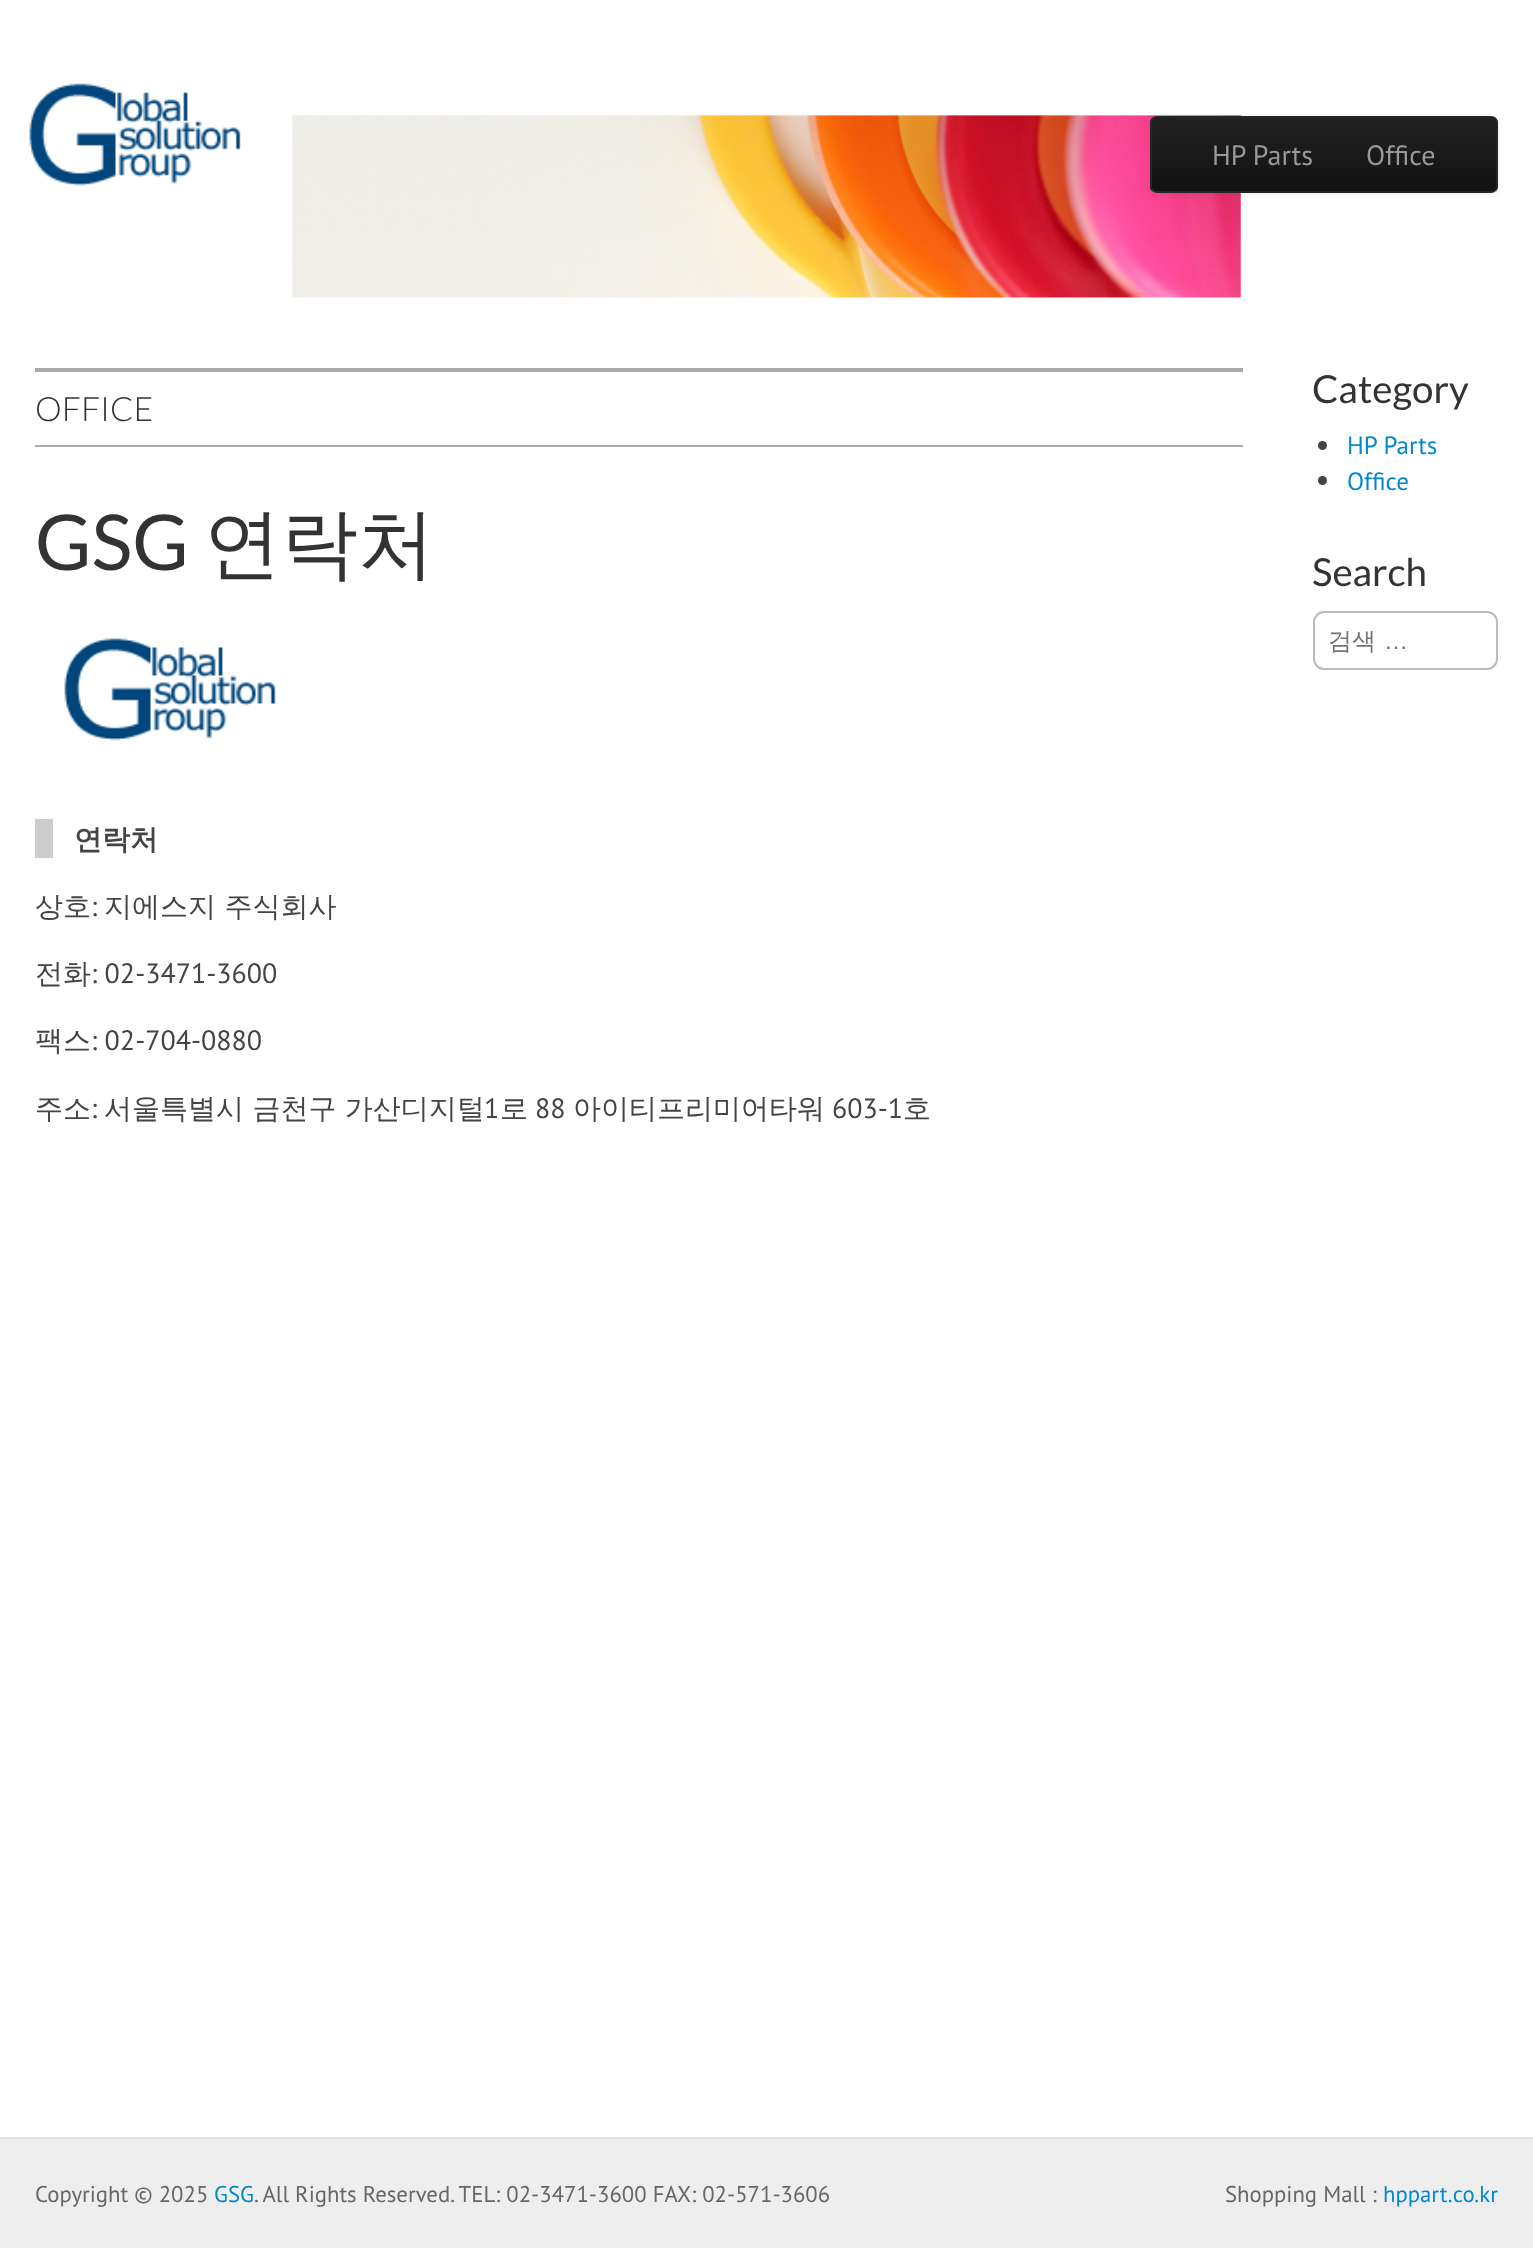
<svg xmlns="http://www.w3.org/2000/svg" width="1533" height="2248" viewBox="0 0 1533 2248">
  <defs>
    <filter id="blur1" x="-50%" y="-200%" width="200%" height="500%"><feGaussianBlur stdDeviation="3.5"/></filter>
    <clipPath id="clip1"><rect x="1150" y="116" width="348" height="77" rx="7"/></clipPath>
    <linearGradient id="g1" gradientUnits="userSpaceOnUse" x1="1324" y1="117" x2="1324" y2="191"><stop offset="0" stop-color="#222222"/><stop offset="1" stop-color="#111111"/></linearGradient>
  </defs>
  <rect width="100%" height="100%" fill="#ffffff"/>
  <image x="292" y="114" width="951" height="184" href="img1.png"/>
  <image x="29" y="83" width="212" height="103" href="img2.png"/>
  <rect x="1150" y="117" width="348" height="77" rx="7" fill="#000000" fill-opacity="0.07" filter="url(#blur1)"/>
  <g clip-path="url(#clip1)">
    <rect x="1150" y="117" width="348" height="74" fill="url(#g1)"/>
  </g>
  <rect x="1151" y="117" width="346" height="75" rx="6" fill="none" stroke="#252525" stroke-width="2"/>
  <text x="1212" y="165" font-family="PT Sans" font-size="28" fill="#999999">HP Parts</text>
  <text x="1366" y="165" font-family="PT Sans" font-size="28" fill="#999999">Office</text>
  <rect x="35" y="368" width="1208" height="4" fill="#aaaaaa"/>
  <rect x="35" y="445" width="1208" height="2" fill="#aaaaaa"/>
  <text x="35" y="421" font-family="Lato" font-size="33.5" font-weight="300" fill="#333333">OFFICE</text>
  <text x="35" y="570" font-family="Lato" font-size="77" fill="#333333">GSG</text>
  <text x="204" y="570" font-family="WenQuanYi Zen Hei" font-size="77" font-weight="500" fill="#333333">연락처</text>
  <image x="64" y="638" width="212" height="103" href="img3.png"/>
  <rect x="35" y="819" width="18" height="39" fill="#cccccc"/>
  <text x="74" y="849" font-family="WenQuanYi Zen Hei" font-size="28" font-weight="bold" fill="#444444">연락처</text>
  <text x="35" y="916" font-family="WenQuanYi Zen Hei" font-size="28" font-weight="500" fill="#444444">상호</text>
  <text x="91" y="916" font-family="PT Sans" font-size="28" fill="#444444">:</text>
  <text x="104" y="916" font-family="WenQuanYi Zen Hei" font-size="28" font-weight="500" fill="#444444">지에스지 주식회사</text>
  <text x="35" y="983" font-family="WenQuanYi Zen Hei" font-size="28" font-weight="500" fill="#444444">전화</text>
  <text x="91" y="983" font-family="PT Sans" font-size="28" fill="#444444">: 02-3471-3600</text>
  <text x="35" y="1050" font-family="WenQuanYi Zen Hei" font-size="28" font-weight="500" fill="#444444">팩스</text>
  <text x="91" y="1050" font-family="PT Sans" font-size="28" fill="#444444">: 02-704-0880</text>
  <text x="35" y="1118" font-family="WenQuanYi Zen Hei" font-size="28" font-weight="500" fill="#444444">주소</text>
  <text x="91" y="1118" font-family="PT Sans" font-size="28" fill="#444444">:</text>
  <text x="104" y="1118" font-family="WenQuanYi Zen Hei" font-size="28" font-weight="500" fill="#444444">서울특별시 금천구 가산디지털</text>
  <text x="484" y="1118" font-family="PT Sans" font-size="28" fill="#444444">1</text>
  <text x="500" y="1118" font-family="WenQuanYi Zen Hei" font-size="28" font-weight="500" fill="#444444">로</text>
  <text x="535" y="1118" font-family="PT Sans" font-size="28" fill="#444444">88</text>
  <text x="573" y="1118" font-family="WenQuanYi Zen Hei" font-size="28" font-weight="500" fill="#444444">아이티프리미어타워</text>
  <text x="832" y="1118" font-family="PT Sans" font-size="28" fill="#444444">603-1</text>
  <text x="903" y="1118" font-family="WenQuanYi Zen Hei" font-size="28" font-weight="500" fill="#444444">호</text>
  <text x="1312" y="403" font-family="Lato" font-size="38.5" fill="#333333">Category</text>
  <circle cx="1322.5" cy="445.5" r="4.5" fill="#444444"/>
  <text x="1347" y="454" font-family="PT Sans" font-size="25" fill="#0088cc">HP Parts</text>
  <circle cx="1322.5" cy="480.5" r="4.5" fill="#444444"/>
  <text x="1347" y="490" font-family="PT Sans" font-size="25" fill="#0088cc">Office</text>
  <text x="1312" y="586" font-family="Lato" font-size="38.5" fill="#333333">Search</text>
  <rect x="1314" y="612" width="183" height="57" rx="10" fill="none" stroke="#bbbbbb" stroke-width="2"/>
  <text x="1328" y="649" font-family="WenQuanYi Zen Hei" font-size="24" font-weight="500" fill="#757575">검색</text>
  <text x="1384" y="649" font-family="Liberation Sans" font-size="24" fill="#757575">…</text>
  <rect x="0" y="2139" width="1533" height="109" fill="#eeeeee"/>
  <rect x="0" y="2137" width="1533" height="2" fill="#e2e2e2"/>
  <text x="35" y="2202" font-family="PT Sans" font-size="22.75" fill="#666666">Copyright © 2025</text>
  <text x="214" y="2202" font-family="PT Sans" font-size="22.75" fill="#0088cc">GSG</text>
  <text x="254" y="2202" font-family="PT Sans" font-size="22.75" fill="#666666">. All Rights Reserved. TEL: 02-3471-3600 FAX: 02-571-3606</text>
  <text x="1225" y="2202" font-family="PT Sans" font-size="22.75" fill="#666666">Shopping Mall :</text>
  <text x="1383" y="2202" font-family="PT Sans" font-size="22.75" fill="#0088cc">hppart.co.kr</text>
</svg>
